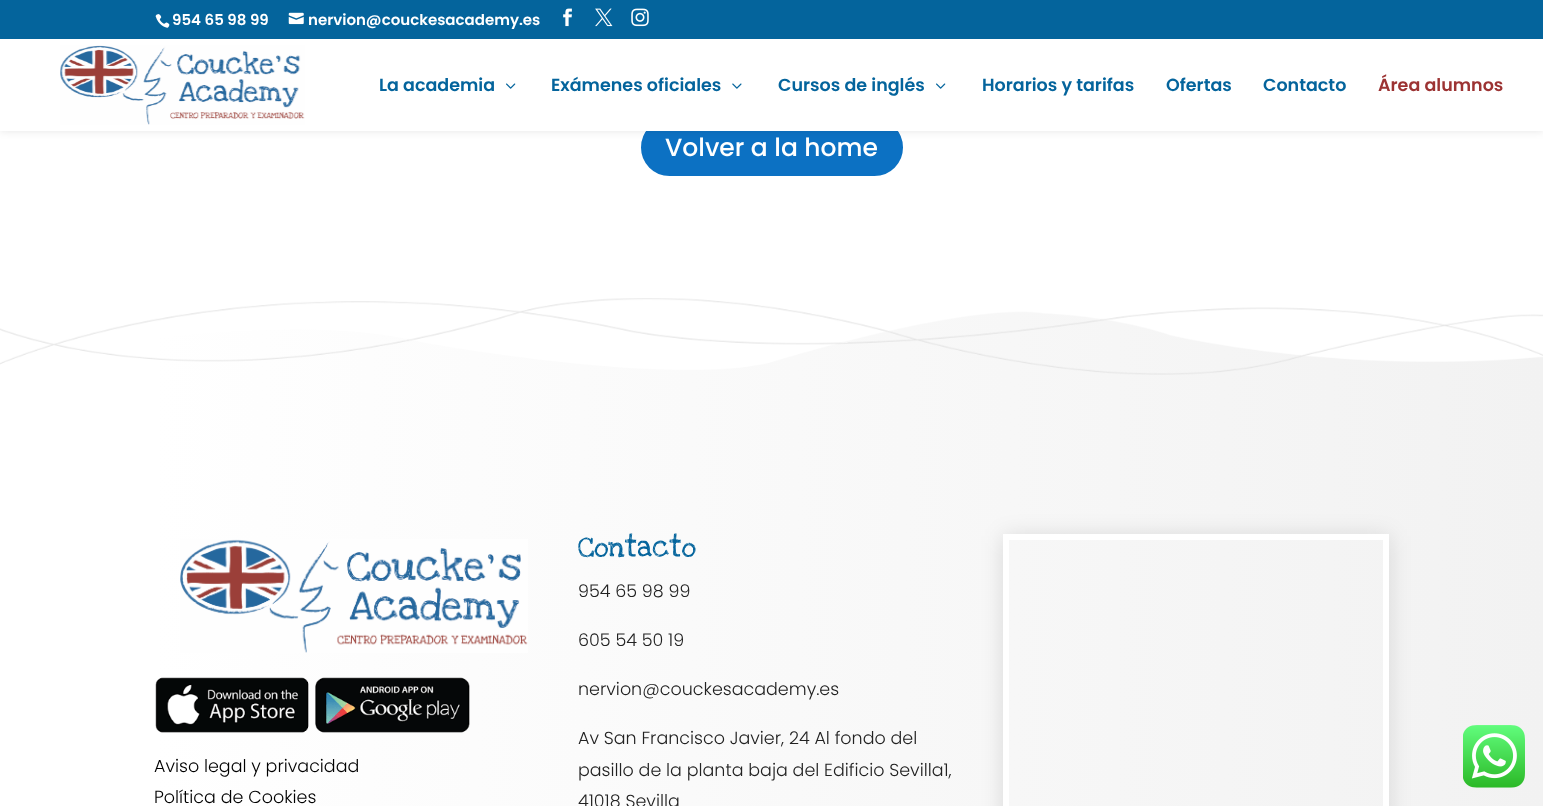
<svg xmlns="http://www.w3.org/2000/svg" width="1543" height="806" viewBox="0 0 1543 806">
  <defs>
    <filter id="blur1" x="-50%" y="-200%" width="200%" height="500%"><feGaussianBlur stdDeviation="4.5"/></filter>
    <clipPath id="clip1"><path d="M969 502H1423V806H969ZM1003 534H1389V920H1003Z" clip-rule="evenodd"/></clipPath>
    <filter id="blur2" x="-50%" y="-200%" width="200%" height="500%"><feGaussianBlur stdDeviation="11"/></filter>
  </defs>
  <rect width="100%" height="100%" fill="#ffffff"/>
  <rect x="639.5" y="117.5" width="265" height="60" rx="30" fill="#0c71c3" stroke="#ffffff" stroke-width="3"/>
  <rect x="0" y="39" width="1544" height="92" fill="#000000" fill-opacity="0.1" filter="url(#blur1)"/>
  <rect x="0" y="0" width="1543" height="39" fill="#04649c"/>
  <image x="155" y="14" width="15" height="14" href="img1.png"/>
  <text x="172" y="25" font-family="Poppins" font-size="15" font-weight="600" fill="#ffffff">954 65 98 99</text>
  <image x="288" y="12" width="16" height="13" href="img2.png"/>
  <text x="308" y="25" font-family="Poppins" font-size="15" font-weight="600" fill="#ffffff">nervion@couckesacademy.es</text>
  <image x="563" y="8" width="9" height="19" href="img3.png"/>
  <image x="595" y="8" width="18" height="19" href="img4.png"/>
  <image x="631" y="8" width="18" height="19" href="img5.png"/>
  <rect x="0" y="39" width="1543" height="92" fill="#ffffff"/>
  <image x="60" y="45" width="245" height="80" href="img6.png"/>
  <text x="379" y="91" font-family="Poppins" font-size="17.5" font-weight="600" fill="#04649c">La academia</text>
  <image x="506" y="83" width="10" height="6" href="img7.png"/>
  <text x="551" y="91" font-family="Poppins" font-size="17.5" font-weight="600" fill="#04649c">Exámenes oficiales</text>
  <image x="732" y="83" width="10" height="6" href="img8.png"/>
  <text x="778" y="91" font-family="Poppins" font-size="17.5" font-weight="600" fill="#04649c">Cursos de inglés</text>
  <image x="936" y="83" width="10" height="6" href="img7.png"/>
  <text x="982" y="91" font-family="Poppins" font-size="17.5" font-weight="600" fill="#04649c">Horarios y tarifas</text>
  <text x="1166" y="91" font-family="Poppins" font-size="17.5" font-weight="600" fill="#04649c">Ofertas</text>
  <text x="1263" y="91" font-family="Poppins" font-size="17.5" font-weight="600" fill="#04649c">Contacto</text>
  <text x="1378" y="91" font-family="Poppins" font-size="17.5" font-weight="600" fill="#9c3333">Área alumnos</text>
  <text x="665" y="156" font-family="Poppins" font-size="25" font-weight="500" fill="#ffffff">Volver a la home</text>
  <image x="0" y="298" width="1543" height="508" href="img9.png"/>
  <image x="180" y="539" width="348" height="114" href="img10.png"/>
  <image x="155" y="677" width="154" height="56" href="img11.png"/>
  <image x="315" y="677" width="155" height="56" href="img12.png"/>
  <text x="154" y="772" font-family="Poppins" font-size="17.5" font-weight="300" fill="#000000">Aviso legal y privacidad</text>
  <text x="154" y="803" font-family="Poppins" font-size="17.5" font-weight="300" fill="#000000">Política de Cookies</text>
  <text x="578" y="556" font-family="Love Ya Like A Sister" font-size="28.75" fill="#04649c">Contacto</text>
  <text x="578" y="597" font-family="Poppins" font-size="17.5" font-weight="300" fill="#222222">954 65 98 99</text>
  <text x="578" y="646" font-family="Poppins" font-size="17.5" font-weight="300" fill="#222222">605 54 50 19</text>
  <text x="578" y="695" font-family="Poppins" font-size="17.5" font-weight="300" fill="#222222">nervion@couckesacademy.es</text>
  <text x="578" y="744" font-family="Poppins" font-size="17.5" font-weight="300" fill="#222222">Av San Francisco Javier, 24 Al fondo del</text>
  <text x="578" y="776" font-family="Poppins" font-size="17.5" font-weight="300" fill="#222222">pasillo de la planta baja del Edificio Sevilla1,</text>
  <text x="578" y="807" font-family="Poppins" font-size="17.5" font-weight="300" fill="#222222">41018 Sevilla</text>
  <g clip-path="url(#clip1)">
    <rect x="1003" y="536" width="386" height="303" fill="#000000" fill-opacity="0.12" filter="url(#blur2)"/>
  </g>
  <rect x="1006" y="537" width="380" height="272" fill="none" stroke="#ffffff" stroke-width="6"/>
  <image x="1463" y="725" width="62" height="63" href="img13.png"/>
</svg>
